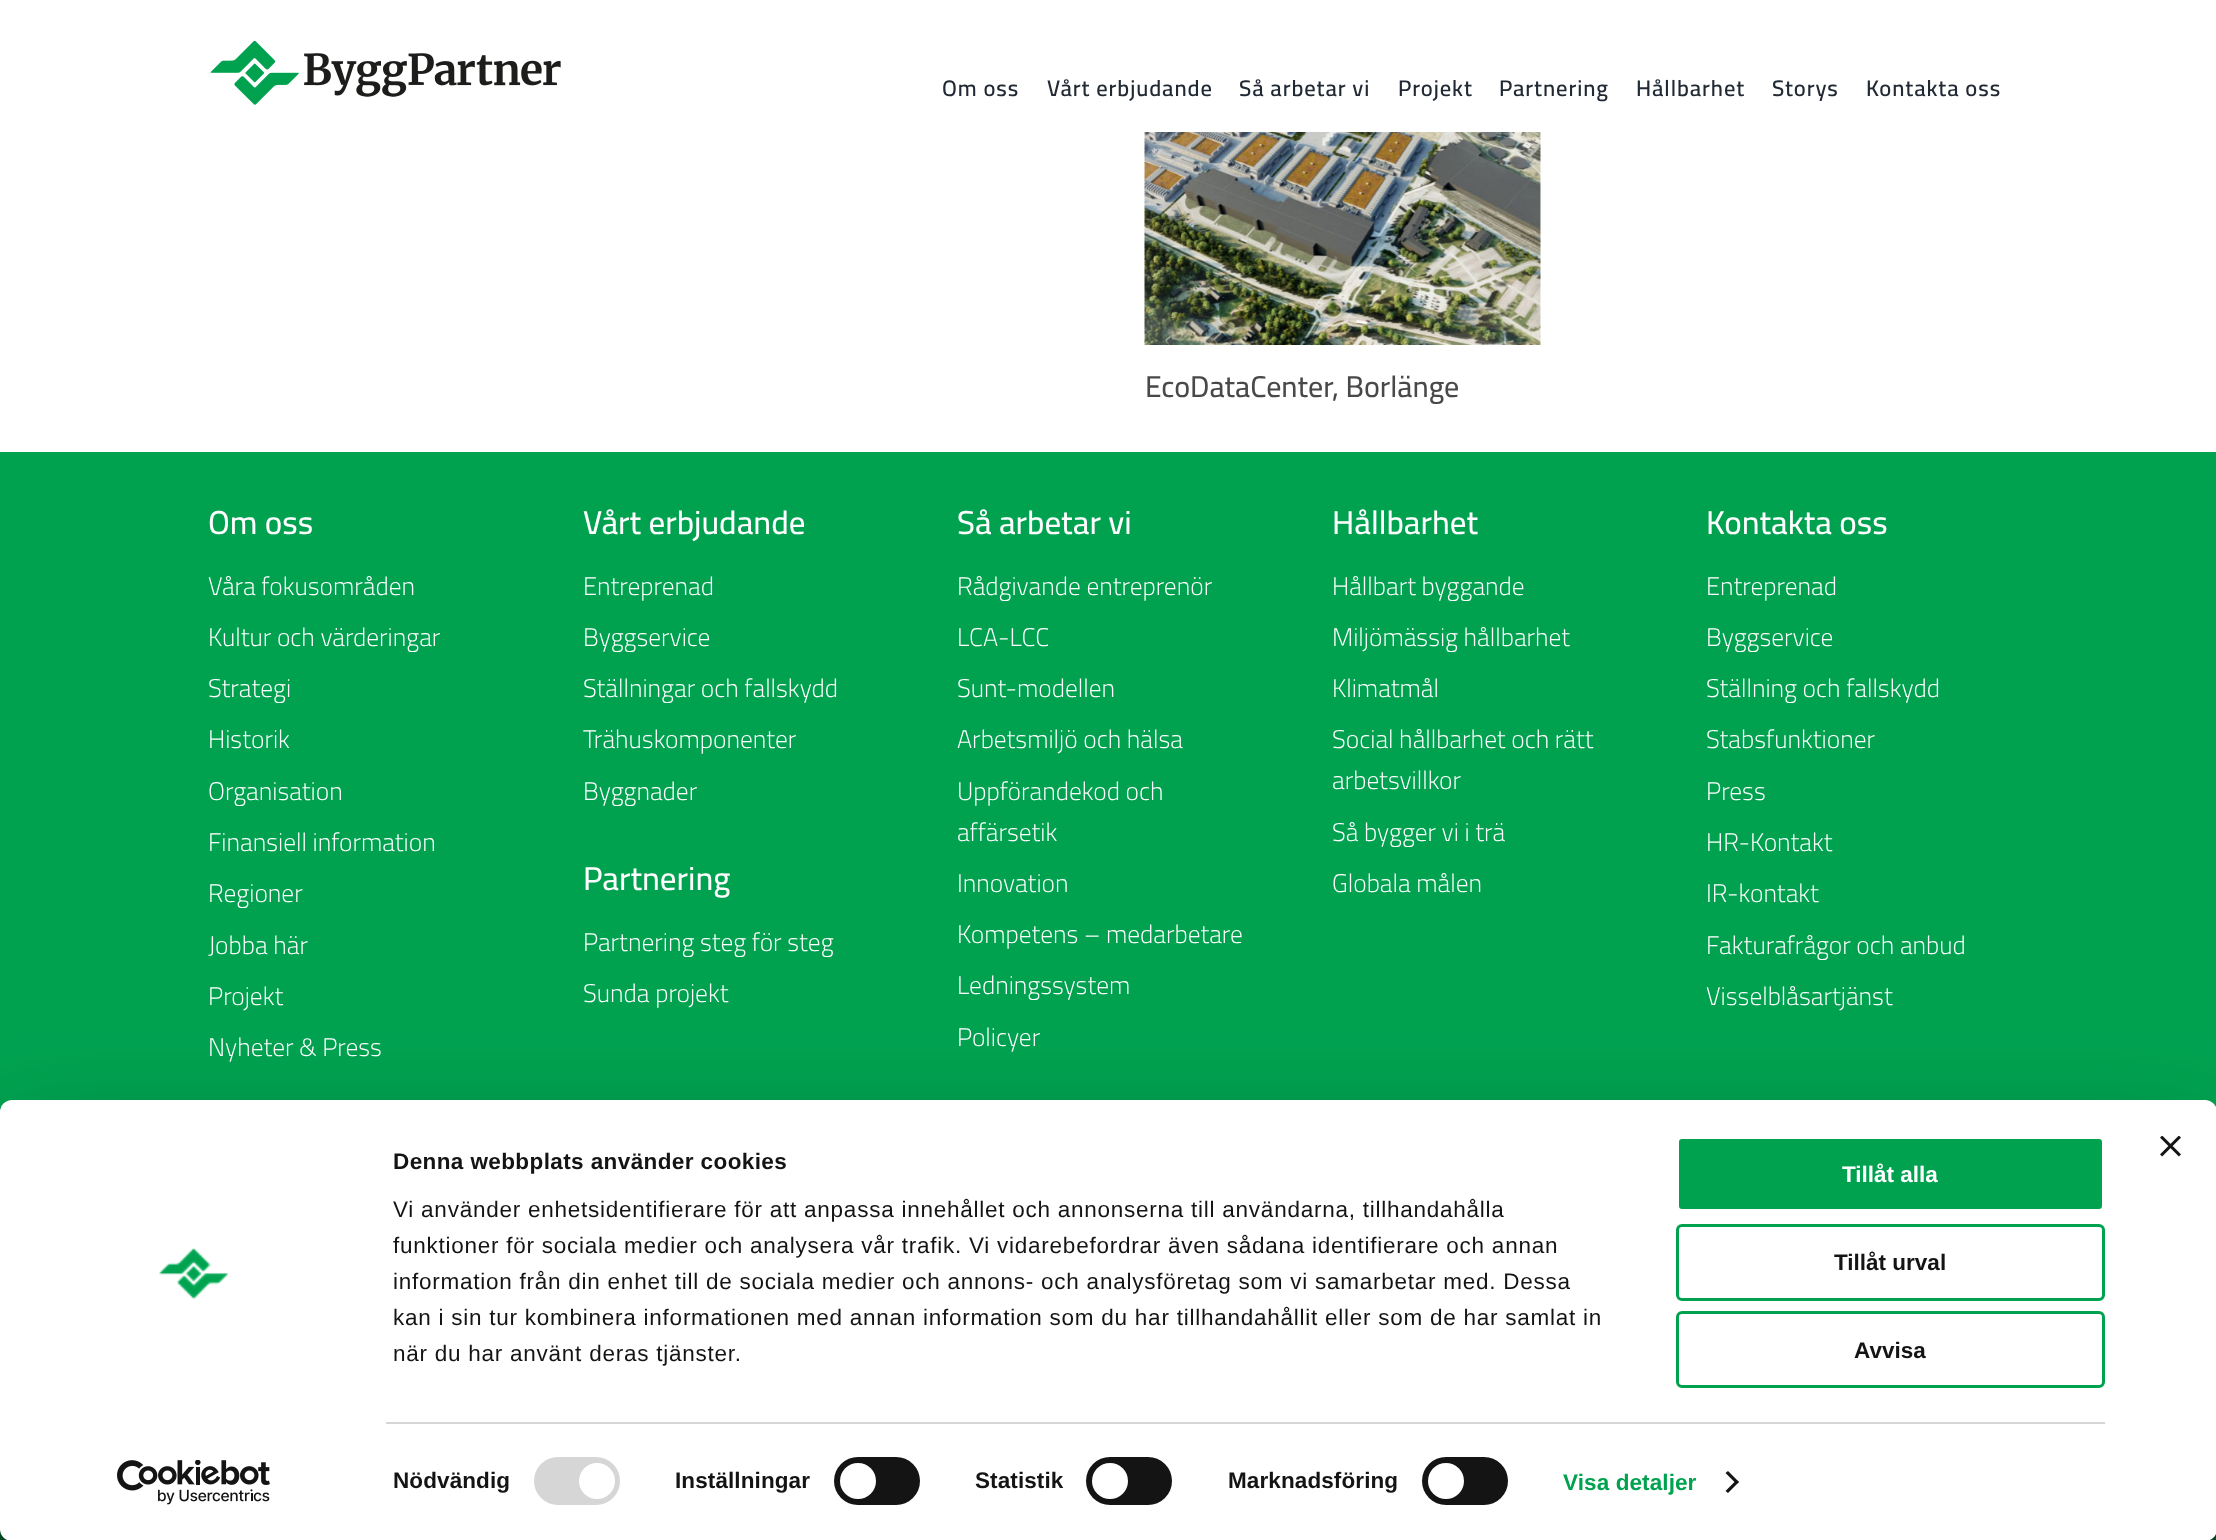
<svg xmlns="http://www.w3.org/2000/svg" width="2216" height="1540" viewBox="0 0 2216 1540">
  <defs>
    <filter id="blur1" x="-50%" y="-200%" width="200%" height="500%"><feGaussianBlur stdDeviation="52.5"/></filter>
  </defs>
  <rect width="100%" height="100%" fill="#ffffff"/>
  <image x="210" y="40" width="351" height="65" href="img1.png"/>
  <text x="942" y="96" font-family="Cairo" font-size="22.5" font-weight="600" letter-spacing="0.9" fill="#212934">Om oss</text>
  <text x="1047" y="96" font-family="Cairo" font-size="22.5" font-weight="600" letter-spacing="0.9" fill="#212934">Vårt erbjudande</text>
  <text x="1239" y="96" font-family="Cairo" font-size="22.5" font-weight="600" letter-spacing="0.9" fill="#212934">Så arbetar vi</text>
  <text x="1398" y="96" font-family="Cairo" font-size="22.5" font-weight="600" letter-spacing="0.9" fill="#212934">Projekt</text>
  <text x="1499" y="96" font-family="Cairo" font-size="22.5" font-weight="600" letter-spacing="0.9" fill="#212934">Partnering</text>
  <text x="1636" y="96" font-family="Cairo" font-size="22.5" font-weight="600" letter-spacing="0.9" fill="#212934">Hållbarhet</text>
  <text x="1772" y="96" font-family="Cairo" font-size="22.5" font-weight="600" letter-spacing="0.9" fill="#212934">Storys</text>
  <text x="1866" y="96" font-family="Cairo" font-size="22.5" font-weight="600" letter-spacing="0.9" fill="#212934">Kontakta oss</text>
  <image x="1144" y="132" width="397" height="213" href="img2.png"/>
  <text x="1145" y="397" font-family="Cairo" font-size="30" font-weight="500" fill="#494949">EcoDataCenter, Borlänge</text>
  <rect x="0" y="452" width="2216" height="660" fill="#00a250"/>
  <text x="208" y="534" font-family="Cairo" font-size="33" font-weight="500" fill="#ffffff">Om oss</text>
  <text x="208" y="595" font-family="Cairo" font-size="25.5" font-weight="300" fill="#ffffff">Våra fokusområden</text>
  <text x="208" y="646" font-family="Cairo" font-size="25.5" font-weight="300" fill="#ffffff">Kultur och värderingar</text>
  <text x="208" y="697" font-family="Cairo" font-size="25.5" font-weight="300" fill="#ffffff">Strategi</text>
  <text x="208" y="748" font-family="Cairo" font-size="25.5" font-weight="300" fill="#ffffff">Historik</text>
  <text x="208" y="800" font-family="Cairo" font-size="25.5" font-weight="300" fill="#ffffff">Organisation</text>
  <text x="208" y="851" font-family="Cairo" font-size="25.5" font-weight="300" fill="#ffffff">Finansiell information</text>
  <text x="208" y="902" font-family="Cairo" font-size="25.5" font-weight="300" fill="#ffffff">Regioner</text>
  <text x="208" y="954" font-family="Cairo" font-size="25.5" font-weight="300" fill="#ffffff">Jobba här</text>
  <text x="208" y="1005" font-family="Cairo" font-size="25.5" font-weight="300" fill="#ffffff">Projekt</text>
  <text x="208" y="1056" font-family="Cairo" font-size="25.5" font-weight="300" fill="#ffffff">Nyheter &amp; Press</text>
  <text x="583" y="534" font-family="Cairo" font-size="33" font-weight="500" fill="#ffffff">Vårt erbjudande</text>
  <text x="583" y="595" font-family="Cairo" font-size="25.5" font-weight="300" fill="#ffffff">Entreprenad</text>
  <text x="583" y="646" font-family="Cairo" font-size="25.5" font-weight="300" fill="#ffffff">Byggservice</text>
  <text x="583" y="697" font-family="Cairo" font-size="25.5" font-weight="300" fill="#ffffff">Ställningar och fallskydd</text>
  <text x="583" y="748" font-family="Cairo" font-size="25.5" font-weight="300" fill="#ffffff">Trähuskomponenter</text>
  <text x="583" y="800" font-family="Cairo" font-size="25.5" font-weight="300" fill="#ffffff">Byggnader</text>
  <text x="583" y="890" font-family="Cairo" font-size="33" font-weight="500" fill="#ffffff">Partnering</text>
  <text x="583" y="951" font-family="Cairo" font-size="25.5" font-weight="300" fill="#ffffff">Partnering steg för steg</text>
  <text x="583" y="1002" font-family="Cairo" font-size="25.5" font-weight="300" fill="#ffffff">Sunda projekt</text>
  <text x="957" y="534" font-family="Cairo" font-size="33" font-weight="500" fill="#ffffff">Så arbetar vi</text>
  <text x="957" y="595" font-family="Cairo" font-size="25.5" font-weight="300" fill="#ffffff">Rådgivande entreprenör</text>
  <text x="957" y="646" font-family="Cairo" font-size="25.5" font-weight="300" fill="#ffffff">LCA-LCC</text>
  <text x="957" y="697" font-family="Cairo" font-size="25.5" font-weight="300" fill="#ffffff">Sunt-modellen</text>
  <text x="957" y="748" font-family="Cairo" font-size="25.5" font-weight="300" fill="#ffffff">Arbetsmiljö och hälsa</text>
  <text x="957" y="800" font-family="Cairo" font-size="25.5" font-weight="300" fill="#ffffff">Uppförandekod och</text>
  <text x="957" y="841" font-family="Cairo" font-size="25.5" font-weight="300" fill="#ffffff">affärsetik</text>
  <text x="957" y="892" font-family="Cairo" font-size="25.5" font-weight="300" fill="#ffffff">Innovation</text>
  <text x="957" y="943" font-family="Cairo" font-size="25.5" font-weight="300" fill="#ffffff">Kompetens – medarbetare</text>
  <text x="957" y="994" font-family="Cairo" font-size="25.5" font-weight="300" fill="#ffffff">Ledningssystem</text>
  <text x="957" y="1046" font-family="Cairo" font-size="25.5" font-weight="300" fill="#ffffff">Policyer</text>
  <text x="1332" y="534" font-family="Cairo" font-size="33" font-weight="500" fill="#ffffff">Hållbarhet</text>
  <text x="1332" y="595" font-family="Cairo" font-size="25.5" font-weight="300" fill="#ffffff">Hållbart byggande</text>
  <text x="1332" y="646" font-family="Cairo" font-size="25.5" font-weight="300" fill="#ffffff">Miljömässig hållbarhet</text>
  <text x="1332" y="697" font-family="Cairo" font-size="25.5" font-weight="300" fill="#ffffff">Klimatmål</text>
  <text x="1332" y="748" font-family="Cairo" font-size="25.5" font-weight="300" fill="#ffffff">Social hållbarhet och rätt</text>
  <text x="1332" y="789" font-family="Cairo" font-size="25.5" font-weight="300" fill="#ffffff">arbetsvillkor</text>
  <text x="1332" y="841" font-family="Cairo" font-size="25.5" font-weight="300" fill="#ffffff">Så bygger vi i trä</text>
  <text x="1332" y="892" font-family="Cairo" font-size="25.5" font-weight="300" fill="#ffffff">Globala målen</text>
  <text x="1706" y="534" font-family="Cairo" font-size="33" font-weight="500" fill="#ffffff">Kontakta oss</text>
  <text x="1706" y="595" font-family="Cairo" font-size="25.5" font-weight="300" fill="#ffffff">Entreprenad</text>
  <text x="1706" y="646" font-family="Cairo" font-size="25.5" font-weight="300" fill="#ffffff">Byggservice</text>
  <text x="1706" y="697" font-family="Cairo" font-size="25.5" font-weight="300" fill="#ffffff">Ställning och fallskydd</text>
  <text x="1706" y="748" font-family="Cairo" font-size="25.5" font-weight="300" fill="#ffffff">Stabsfunktioner</text>
  <text x="1706" y="800" font-family="Cairo" font-size="25.5" font-weight="300" fill="#ffffff">Press</text>
  <text x="1706" y="851" font-family="Cairo" font-size="25.5" font-weight="300" fill="#ffffff">HR-Kontakt</text>
  <text x="1706" y="902" font-family="Cairo" font-size="25.5" font-weight="300" fill="#ffffff">IR-kontakt</text>
  <text x="1706" y="954" font-family="Cairo" font-size="25.5" font-weight="300" fill="#ffffff">Fakturafrågor och anbud</text>
  <text x="1706" y="1005" font-family="Cairo" font-size="25.5" font-weight="300" fill="#ffffff">Visselblåsartjänst</text>
  <rect x="0" y="1529" width="2216" height="11" fill="#005023"/>
  <rect x="0" y="1145" width="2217" height="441" rx="12" fill="#000000" fill-opacity="0.3" filter="url(#blur1)"/>
  <rect x="0" y="1100" width="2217" height="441" rx="12" fill="#ffffff"/>
  <image x="2160" y="1136" width="21" height="21" href="img3.png"/>
  <image x="159" y="1248" width="69" height="52" href="img4.png"/>
  <image x="117" y="1460" width="153" height="45" href="img5.png"/>
  <text x="393" y="1169" font-family="Liberation Sans" font-size="22.5" font-weight="bold" letter-spacing="0.4" fill="#141414">Denna webbplats använder cookies</text>
  <text x="393" y="1217" font-family="Liberation Sans" font-size="22.5" letter-spacing="0.75" fill="#141414">Vi använder enhetsidentifierare för att anpassa innehållet och annonserna till användarna, tillhandahålla</text>
  <text x="393" y="1253" font-family="Liberation Sans" font-size="22.5" letter-spacing="0.75" fill="#141414">funktioner för sociala medier och analysera vår trafik. Vi vidarebefordrar även sådana identifierare och annan</text>
  <text x="393" y="1289" font-family="Liberation Sans" font-size="22.5" letter-spacing="0.75" fill="#141414">information från din enhet till de sociala medier och annons- och analysföretag som vi samarbetar med. Dessa</text>
  <text x="393" y="1325" font-family="Liberation Sans" font-size="22.5" letter-spacing="0.75" fill="#141414">kan i sin tur kombinera informationen med annan information som du har tillhandahållit eller som de har samlat in</text>
  <text x="393" y="1361" font-family="Liberation Sans" font-size="22.5" letter-spacing="0.75" fill="#141414">när du har använt deras tjänster.</text>
  <rect x="386" y="1422" width="1719" height="2" fill="#d6d6d6"/>
  <text x="393" y="1488" font-family="Liberation Sans" font-size="22.5" font-weight="bold" letter-spacing="0.1" fill="#141414">Nödvändig</text>
  <rect x="534" y="1457" width="86" height="48" rx="24" fill="#d6d6d6"/>
  <circle cx="597" cy="1481" r="18" fill="#ffffff"/>
  <text x="675" y="1488" font-family="Liberation Sans" font-size="22.5" font-weight="bold" letter-spacing="0.1" fill="#141414">Inställningar</text>
  <rect x="834" y="1457" width="86" height="48" rx="24" fill="#141414"/>
  <circle cx="858" cy="1481" r="18" fill="#ffffff"/>
  <text x="975" y="1488" font-family="Liberation Sans" font-size="22.5" font-weight="bold" letter-spacing="0.1" fill="#141414">Statistik</text>
  <rect x="1086" y="1457" width="86" height="48" rx="24" fill="#141414"/>
  <circle cx="1110" cy="1481" r="18" fill="#ffffff"/>
  <text x="1228" y="1488" font-family="Liberation Sans" font-size="22.5" font-weight="bold" letter-spacing="0.1" fill="#141414">Marknadsföring</text>
  <rect x="1422" y="1457" width="86" height="48" rx="24" fill="#141414"/>
  <circle cx="1446" cy="1481" r="18" fill="#ffffff"/>
  <text x="1563" y="1490" font-family="Liberation Sans" font-size="22.5" font-weight="bold" letter-spacing="0.1" fill="#00a250">Visa detaljer</text>
  <path d="M1728 1471L1739 1482L1736.5 1484L1725.5 1473Z" fill="#141414"/>
  <path d="M1736.5 1480L1739 1482L1728 1493L1725.5 1491Z" fill="#141414"/>
  <rect x="1677.5" y="1137.5" width="426" height="73" rx="4.5" fill="#00a250" stroke="#ffffff" stroke-width="3"/>
  <text x="1842" y="1182" font-family="Liberation Sans" font-size="22.5" font-weight="bold" fill="#ffffff">Tillåt alla</text>
  <rect x="1677.5" y="1225.5" width="426" height="74" rx="4.5" fill="none" stroke="#00a250" stroke-width="3"/>
  <text x="1834" y="1270" font-family="Liberation Sans" font-size="22.5" font-weight="bold" fill="#141414">Tillåt urval</text>
  <rect x="1677.5" y="1312.5" width="426" height="74" rx="4.5" fill="none" stroke="#00a250" stroke-width="3"/>
  <text x="1854" y="1358" font-family="Liberation Sans" font-size="22.5" font-weight="bold" fill="#141414">Avvisa</text>
</svg>
